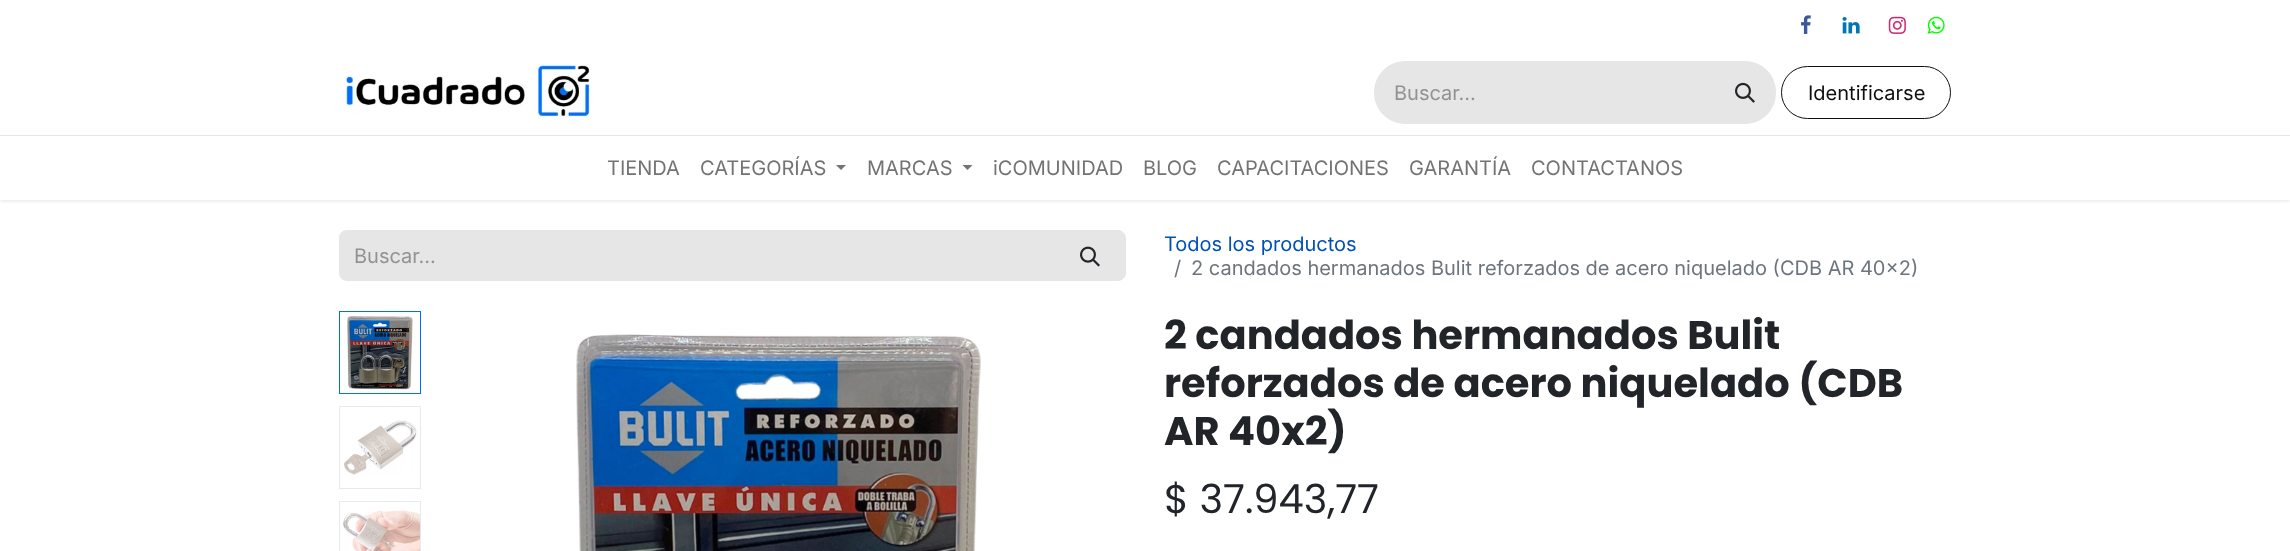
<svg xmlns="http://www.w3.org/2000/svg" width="2290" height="551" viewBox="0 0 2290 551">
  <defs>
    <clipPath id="clip1"><rect x="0" y="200" width="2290" height="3"/></clipPath>
    <filter id="blur1" x="-50%" y="-200%" width="200%" height="500%"><feGaussianBlur stdDeviation="2"/></filter>
  </defs>
  <rect width="100%" height="100%" fill="#ffffff"/>
  <g clip-path="url(#clip1)">
    <rect x="0" y="1" width="2290" height="200" fill="#000000" fill-opacity="0.1" filter="url(#blur1)"/>
  </g>
  <image x="1801" y="15" width="10" height="19" href="img1.png"/>
  <image x="1842" y="17" width="18" height="17" href="img2.png"/>
  <image x="1888" y="16" width="18" height="18" href="img3.png"/>
  <image x="1927" y="16" width="18" height="18" href="img4.png"/>
  <image x="343" y="64" width="248" height="57" href="img5.png"/>
  <path d="M1405.5 61H1715V124H1405.5C1388 124 1374 110 1374 92.5C1374 75 1388 61 1405.5 61Z" fill="#e6e6e6"/>
  <text x="1394" y="100" font-family="Inter" font-size="20" fill="#909294">Buscar…</text>
  <path d="M1714 61H1745C1762 61 1776 75 1776 92V93C1776 110 1762 124 1745 124H1714Z" fill="#e6e6e6"/>
  <image x="1735" y="82" width="20" height="21" href="img6.png"/>
  <rect x="1781.5" y="66.5" width="169" height="52" rx="26" fill="none" stroke="#0f0f11"/>
  <text x="1808" y="100" font-family="Inter" font-size="20" fill="#0f0f11">Identificarse</text>
  <rect x="0" y="135" width="2290" height="1" fill="#e6e6e6"/>
  <text x="607" y="175" font-family="Inter" font-size="20" fill="#737373">TIENDA</text>
  <text x="700" y="175" font-family="Inter" font-size="20" fill="#737373">CATEGORÍAS</text>
  <path d="M836 165H846L841 170Z" fill="#737373"/>
  <text x="867" y="175" font-family="Inter" font-size="20" fill="#737373">MARCAS</text>
  <path d="M962.5 165H972.5L967.5 170Z" fill="#737373"/>
  <text x="993" y="175" font-family="Inter" font-size="20" fill="#737373">iCOMUNIDAD</text>
  <text x="1143" y="175" font-family="Inter" font-size="20" fill="#737373">BLOG</text>
  <text x="1217" y="175" font-family="Inter" font-size="20" fill="#737373">CAPACITACIONES</text>
  <text x="1409" y="175" font-family="Inter" font-size="20" fill="#737373">GARANTÍA</text>
  <text x="1531" y="175" font-family="Inter" font-size="20" fill="#737373">CONTACTANOS</text>
  <path d="M347 230H1055V281H347C342.5 281 339 277.5 339 273V238C339 233.5 342.5 230 347 230Z" fill="#e6e6e6"/>
  <text x="354" y="263" font-family="Inter" font-size="20" fill="#909294">Buscar…</text>
  <path d="M1054.5 230.5H1118C1122 230.5 1125.5 234 1125.5 238V273C1125.5 277 1122 280.5 1118 280.5H1054.5Z" fill="#e6e6e6" stroke="#e6e6e6"/>
  <image x="1080" y="246" width="20" height="21" href="img7.png"/>
  <text x="1164" y="251" font-family="Inter" font-size="20" fill="#0050b8">Todos los productos</text>
  <text x="1174" y="275" font-family="Inter" font-size="20" fill="#6c757d">/</text>
  <text x="1191" y="275" font-family="Inter" font-size="20" fill="#6c757d">2 candados hermanados Bulit reforzados de acero niquelado (CDB AR 40x2)</text>
  <rect x="339.5" y="311.5" width="81" height="82" fill="none" stroke="#006fff"/>
  <image x="347" y="316" width="66" height="74" href="img8.png"/>
  <rect x="339.5" y="406.5" width="81" height="82" fill="none" stroke="#e7eaed"/>
  <image x="344" y="420" width="73" height="55" href="img9.png"/>
  <rect x="339.5" y="501.5" width="81" height="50" fill="none" stroke="#e7eaed"/>
  <image x="343" y="510" width="77" height="41" href="img10.png"/>
  <image x="576" y="334" width="405" height="217" href="img11.png"/>
  <text x="1164" y="349" font-family="Poppins" font-size="40" font-weight="bold" fill="#212529">2 candados hermanados Bulit</text>
  <text x="1164" y="397" font-family="Poppins" font-size="40" font-weight="bold" fill="#212529">reforzados de acero niquelado (CDB</text>
  <text x="1164" y="445" font-family="Poppins" font-size="40" font-weight="bold" fill="#212529">AR 40x2)</text>
  <text x="1164" y="513" font-family="Poppins" font-size="40" fill="#212529">$ 37.943,77</text>
</svg>
